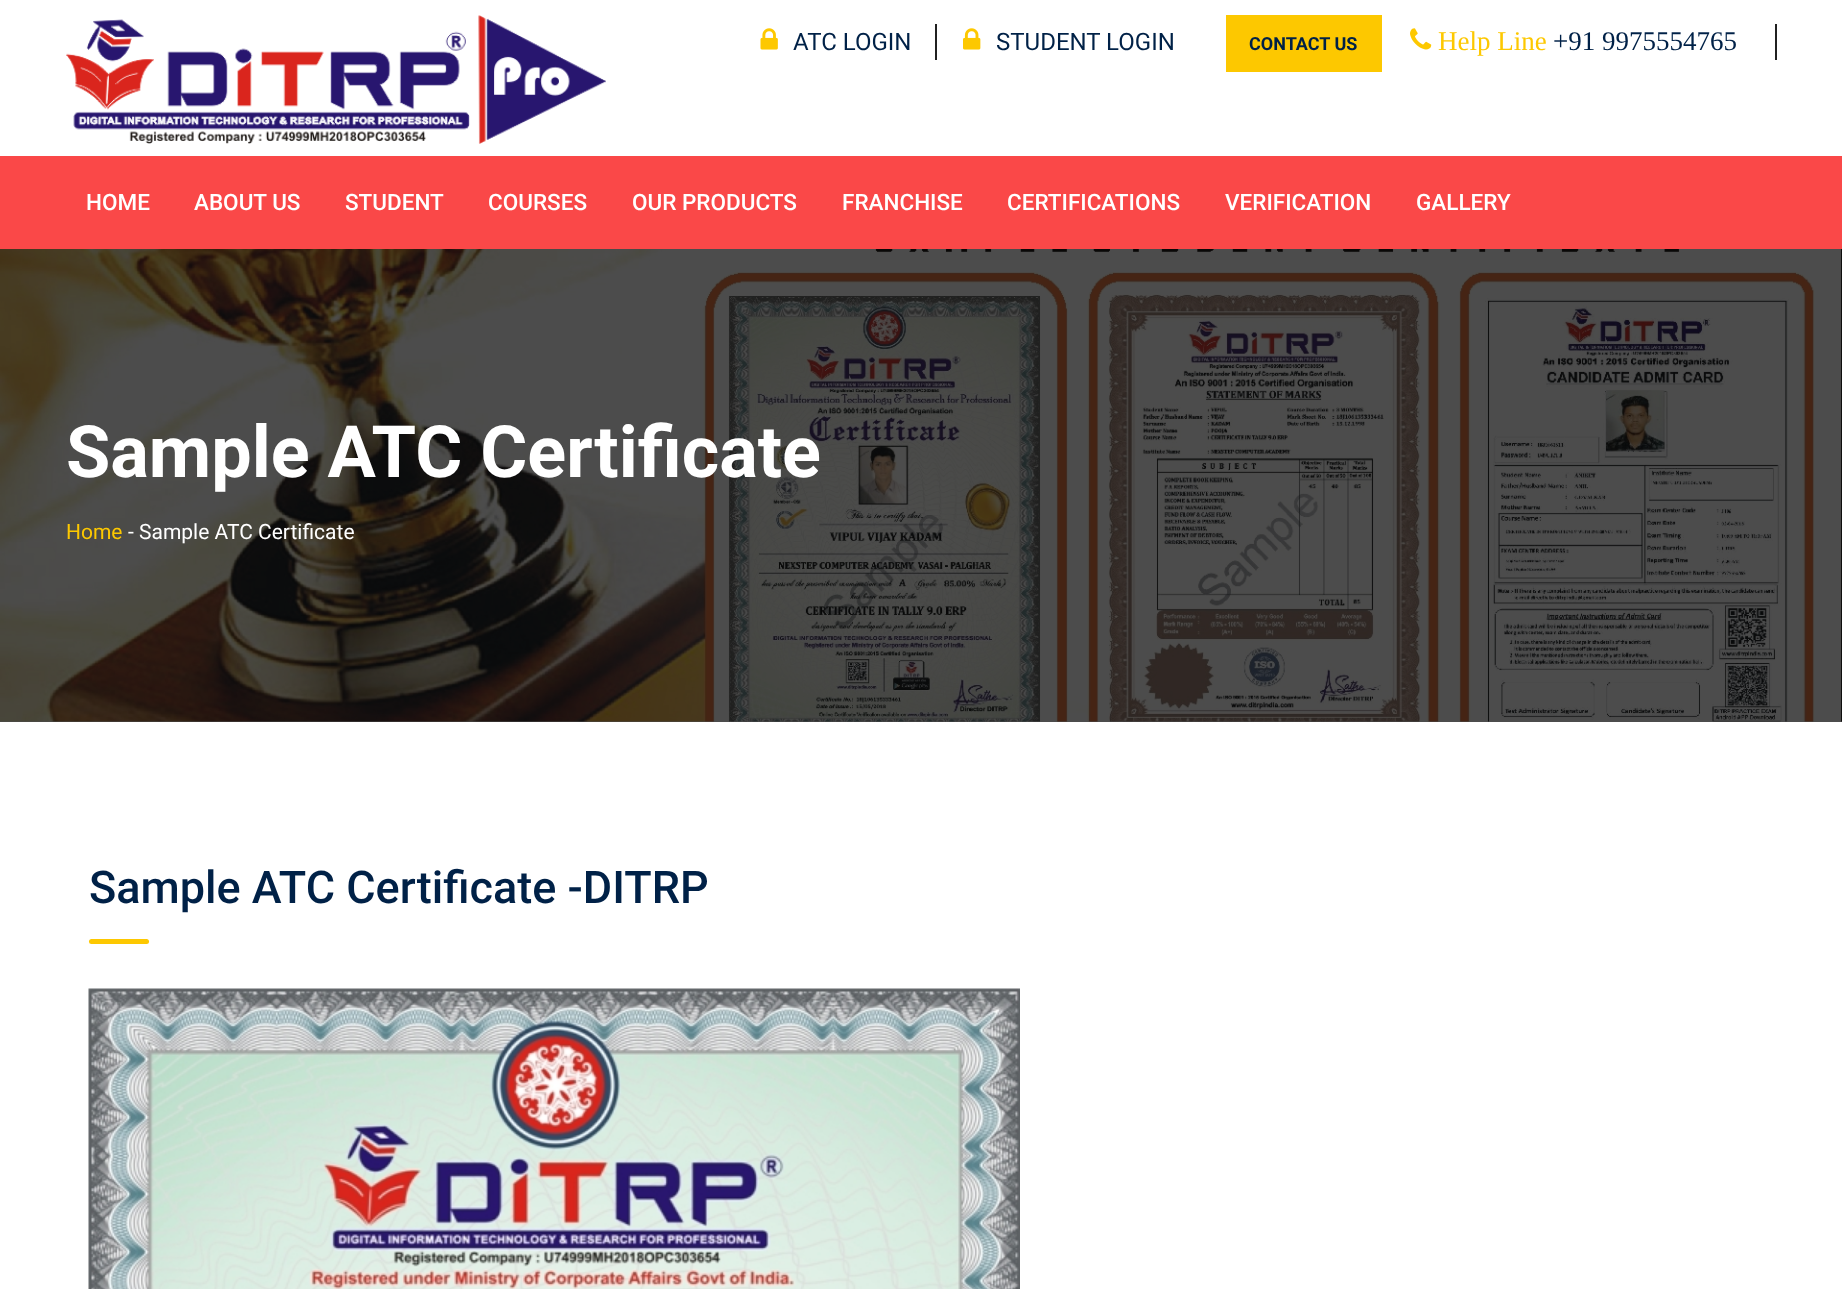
<svg xmlns="http://www.w3.org/2000/svg" width="1842" height="1289" viewBox="0 0 1842 1289">
  <rect width="100%" height="100%" fill="#ffffff"/>
  <rect x="0" y="721" width="1842" height="1" fill="#4d4d4d"/>
  <image x="66" y="15" width="540" height="129" href="img1.png"/>
  <rect x="935" y="24" width="2" height="36" fill="#212121"/>
  <image x="760" y="28" width="18" height="22" href="img2.png"/>
  <text x="793" y="50" font-family="Roboto" font-size="24" fill="#002147">ATC LOGIN</text>
  <image x="963" y="28" width="18" height="22" href="img3.png"/>
  <text x="996" y="50" font-family="Roboto" font-size="24" fill="#002147">STUDENT LOGIN</text>
  <rect x="1226" y="15" width="156" height="57" fill="#fdc800"/>
  <text x="1249" y="50" font-family="Roboto" font-size="18" font-weight="bold" fill="#002147">CONTACT US</text>
  <rect x="1775" y="24" width="2" height="36" fill="#212121"/>
  <image x="1410" y="28" width="22" height="22" href="img4.png"/>
  <text x="1438" y="50" font-family="Liberation Serif" font-size="27" fill="#fdc800">Help Line</text>
  <text x="1553" y="50" font-family="Liberation Serif" font-size="27" fill="#002147">+91 9975554765</text>
  <rect x="0" y="156" width="1842" height="93" fill="#fa4848"/>
  <text x="86" y="210" font-family="Roboto" font-size="22.5" font-weight="500" fill="#ffffff">HOME</text>
  <text x="194" y="210" font-family="Roboto" font-size="22.5" font-weight="500" fill="#ffffff">ABOUT US</text>
  <text x="345" y="210" font-family="Roboto" font-size="22.5" font-weight="500" fill="#ffffff">STUDENT</text>
  <text x="488" y="210" font-family="Roboto" font-size="22.5" font-weight="500" fill="#ffffff">COURSES</text>
  <text x="632" y="210" font-family="Roboto" font-size="22.5" font-weight="500" fill="#ffffff">OUR PRODUCTS</text>
  <text x="842" y="210" font-family="Roboto" font-size="22.5" font-weight="500" fill="#ffffff">FRANCHISE</text>
  <text x="1007" y="210" font-family="Roboto" font-size="22.5" font-weight="500" fill="#ffffff">CERTIFICATIONS</text>
  <text x="1225" y="210" font-family="Roboto" font-size="22.5" font-weight="500" fill="#ffffff">VERIFICATION</text>
  <text x="1416" y="210" font-family="Roboto" font-size="22.5" font-weight="500" fill="#ffffff">GALLERY</text>
  <image x="0" y="249" width="1842" height="473" href="img5.png"/>
  <text x="66" y="477" font-family="Roboto" font-size="72" font-weight="bold" fill="#ffffff">Sample ATC Certificate</text>
  <text x="66" y="539" font-family="Roboto" font-size="21" fill="#fdc800">Home</text>
  <text x="128" y="539" font-family="Roboto" font-size="21" fill="#ffffff">-</text>
  <text x="139" y="539" font-family="Roboto" font-size="21" fill="#ffffff">Sample ATC Certificate</text>
  <text x="89" y="903" font-family="Roboto" font-size="45" font-weight="500" fill="#002147">Sample ATC Certificate -DITRP</text>
  <rect x="89" y="939" width="60" height="5" rx="2.5" fill="#fdc800"/>
  <image x="88" y="988" width="932" height="301" href="img6.png"/>
</svg>
